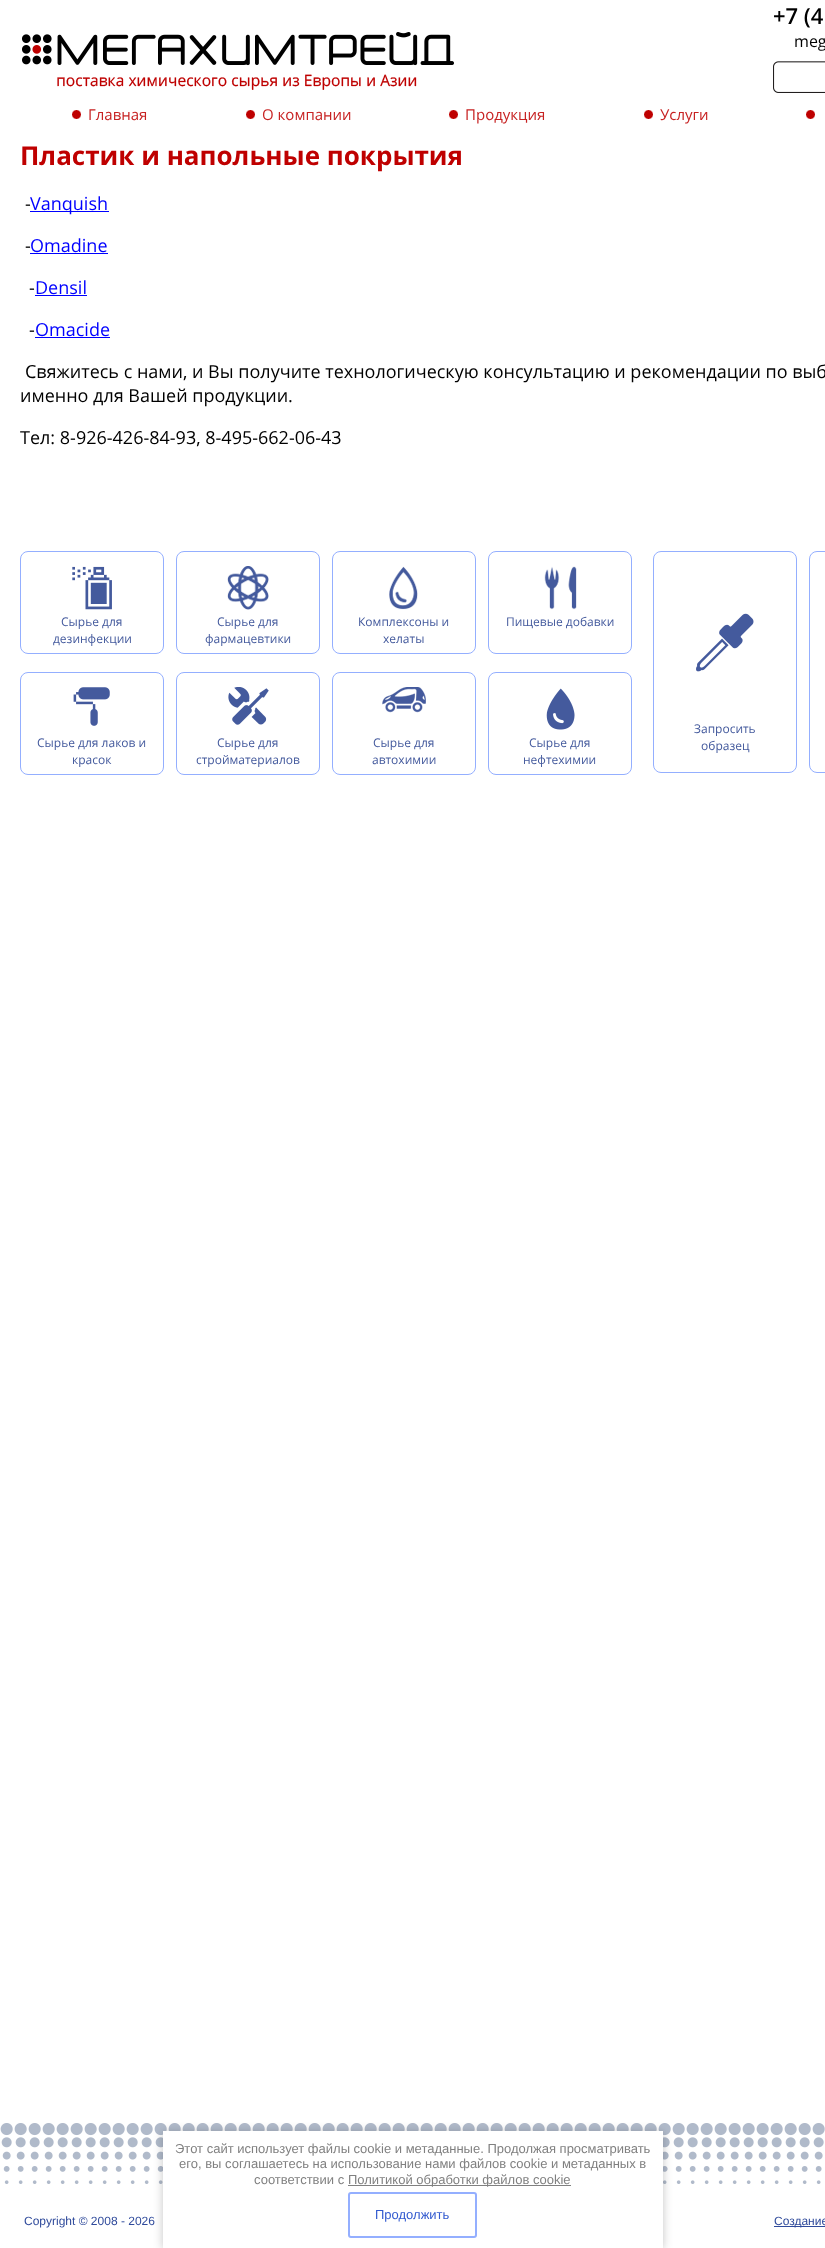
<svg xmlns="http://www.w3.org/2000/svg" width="825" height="2248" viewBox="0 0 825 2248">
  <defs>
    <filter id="blur1" x="-50%" y="-200%" width="200%" height="500%"><feGaussianBlur stdDeviation="5"/></filter>
  </defs>
  <rect width="100%" height="100%" fill="#ffffff"/>
  <image x="22" y="32" width="432" height="58" href="img1.png"/>
  <text x="773" y="24" font-family="Open Sans" font-size="22" font-weight="600" fill="#000000">+7 (4</text>
  <text x="794" y="47" font-family="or" font-size="16" fill="#000000">meg</text>
  <image x="773" y="61" width="52" height="32" href="img2.png"/>
  <image x="72" y="110" width="9" height="9" href="img3.png"/>
  <text x="88" y="120" font-family="or" font-size="15" fill="#c72222">Главная</text>
  <image x="246" y="110" width="9" height="9" href="img3.png"/>
  <text x="262" y="120" font-family="or" font-size="15" fill="#c72222">О компании</text>
  <image x="449" y="110" width="9" height="9" href="img3.png"/>
  <text x="465" y="120" font-family="or" font-size="15" fill="#c72222">Продукция</text>
  <image x="644" y="110" width="9" height="9" href="img3.png"/>
  <text x="660" y="120" font-family="or" font-size="15" fill="#c72222">Услуги</text>
  <image x="806" y="110" width="9" height="9" href="img3.png"/>
  <text x="20" y="165" font-family="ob" font-size="26" font-weight="bold" fill="#bf0000">Пластик и напольные покрытия</text>
  <text x="25" y="210" font-family="or" font-size="18" fill="#000000">-</text>
  <rect x="30" y="211" width="79" height="1" fill="#0000ff"/>
  <text x="30" y="210" font-family="or" font-size="18" fill="#0000ff">Vanquish</text>
  <text x="25" y="252" font-family="or" font-size="18" fill="#000000">-</text>
  <text x="30" y="252" font-family="or" font-size="18" fill="#0000ff">Omadine</text>
  <rect x="30" y="253" width="78" height="1" fill="#0000ff"/>
  <text x="29" y="294" font-family="or" font-size="18" fill="#000000">-</text>
  <text x="35" y="294" font-family="or" font-size="18" fill="#0000ff">Densil</text>
  <rect x="35" y="295" width="52" height="1" fill="#0000ff"/>
  <text x="29" y="336" font-family="or" font-size="18" fill="#000000">-</text>
  <text x="35" y="336" font-family="or" font-size="18" fill="#0000ff">Omacide</text>
  <rect x="35" y="337" width="75" height="1" fill="#0000ff"/>
  <text x="25" y="378" font-family="or" font-size="18" fill="#000000">Свяжитесь с нами, и Вы получите технологическую консультацию и рекомендации по выб</text>
  <text x="20" y="402" font-family="or" font-size="18" fill="#000000">именно для Вашей продукции.</text>
  <text x="20" y="444" font-family="or" font-size="18" fill="#000000">Тел: 8-926-426-84-93, 8-495-662-06-43</text>
  <rect x="20.5" y="551.5" width="143" height="102" rx="7.5" fill="none" stroke="#94afff"/>
  <image x="72" y="566" width="40" height="44" href="img4.png"/>
  <text x="61" y="626" font-family="or" font-size="12" fill="#445a9d">Сырье для</text>
  <text x="53" y="643" font-family="or" font-size="12" fill="#445a9d">дезинфекции</text>
  <rect x="176.5" y="551.5" width="143" height="102" rx="7.5" fill="none" stroke="#94afff"/>
  <image x="227" y="566" width="42" height="44" href="img5.png"/>
  <text x="217" y="626" font-family="or" font-size="12" fill="#445a9d">Сырье для</text>
  <text x="205" y="643" font-family="or" font-size="12" fill="#445a9d">фармацевтики</text>
  <rect x="332.5" y="551.5" width="143" height="102" rx="7.5" fill="none" stroke="#94afff"/>
  <image x="389" y="566" width="29" height="44" href="img6.png"/>
  <text x="358" y="626" font-family="or" font-size="12" fill="#445a9d">Комплексоны и</text>
  <text x="383" y="643" font-family="or" font-size="12" fill="#445a9d">хелаты</text>
  <rect x="488.5" y="551.5" width="143" height="102" rx="7.5" fill="none" stroke="#94afff"/>
  <image x="544" y="566" width="33" height="44" href="img7.png"/>
  <text x="506" y="626" font-family="or" font-size="12" fill="#445a9d">Пищевые добавки</text>
  <rect x="20.5" y="672.5" width="143" height="102" rx="7.5" fill="none" stroke="#94afff"/>
  <image x="73" y="687" width="37" height="39" href="img8.png"/>
  <text x="37" y="747" font-family="or" font-size="12" fill="#445a9d">Сырье для лаков и</text>
  <text x="72" y="764" font-family="or" font-size="12" fill="#445a9d">красок</text>
  <rect x="176.5" y="672.5" width="143" height="102" rx="7.5" fill="none" stroke="#94afff"/>
  <image x="228" y="687" width="41" height="38" href="img9.png"/>
  <text x="217" y="747" font-family="or" font-size="12" fill="#445a9d">Сырье для</text>
  <text x="196" y="764" font-family="or" font-size="12" fill="#445a9d">стройматериалов</text>
  <rect x="332.5" y="672.5" width="143" height="102" rx="7.5" fill="none" stroke="#94afff"/>
  <image x="382" y="687" width="44" height="26" href="img10.png"/>
  <text x="373" y="747" font-family="or" font-size="12" fill="#445a9d">Сырье для</text>
  <text x="372" y="764" font-family="or" font-size="12" fill="#445a9d">автохимии</text>
  <rect x="488.5" y="672.5" width="143" height="102" rx="7.5" fill="none" stroke="#94afff"/>
  <image x="546" y="688" width="29" height="42" href="img11.png"/>
  <text x="529" y="747" font-family="or" font-size="12" fill="#445a9d">Сырье для</text>
  <text x="523" y="764" font-family="or" font-size="12" fill="#445a9d">нефтехимии</text>
  <rect x="653.5" y="551.5" width="143" height="221" rx="7.5" fill="none" stroke="#94afff"/>
  <image x="696" y="613" width="58" height="59" href="img12.png"/>
  <text x="694" y="733" font-family="or" font-size="12" fill="#445a9d">Запросить</text>
  <text x="701" y="750" font-family="or" font-size="12" fill="#445a9d">образец</text>
  <rect x="809.5" y="551.5" width="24" height="221" rx="7.5" fill="none" stroke="#94afff"/>
  <image x="0" y="2123" width="825" height="61" href="img13.png"/>
  <rect x="163" y="2132" width="500" height="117" fill="#000000" fill-opacity="0.23" filter="url(#blur1)"/>
  <rect x="163" y="2131" width="500" height="117" fill="#ffffff"/>
  <text x="175" y="2153" font-family="Liberation Sans" font-size="13" fill="#808080">Этот сайт использует файлы cookie и метаданные. Продолжая просматривать</text>
  <text x="179" y="2168" font-family="Liberation Sans" font-size="13" fill="#808080">его, вы соглашаетесь на использование нами файлов cookie и метаданных в</text>
  <text x="254" y="2184" font-family="Liberation Sans" font-size="13" fill="#808080">соответствии с</text>
  <rect x="348" y="2185" width="223" height="1" fill="#808080"/>
  <text x="348" y="2184" font-family="Liberation Sans" font-size="13" fill="#808080">Политикой обработки файлов cookie</text>
  <rect x="349" y="2193" width="127" height="44" rx="2" fill="none" stroke="#94afff" stroke-width="2"/>
  <text x="375" y="2219" font-family="Liberation Sans" font-size="13" fill="#325acf">Продолжить</text>
  <text x="24" y="2225" font-family="Liberation Sans" font-size="12" fill="#2f4a9b">Copyright © 2008 - 2026</text>
  <rect x="774" y="2226" width="51" height="1" fill="#2f4a9b"/>
  <text x="774" y="2225" font-family="Liberation Sans" font-size="12" fill="#2f4a9b">Создание</text>
</svg>
